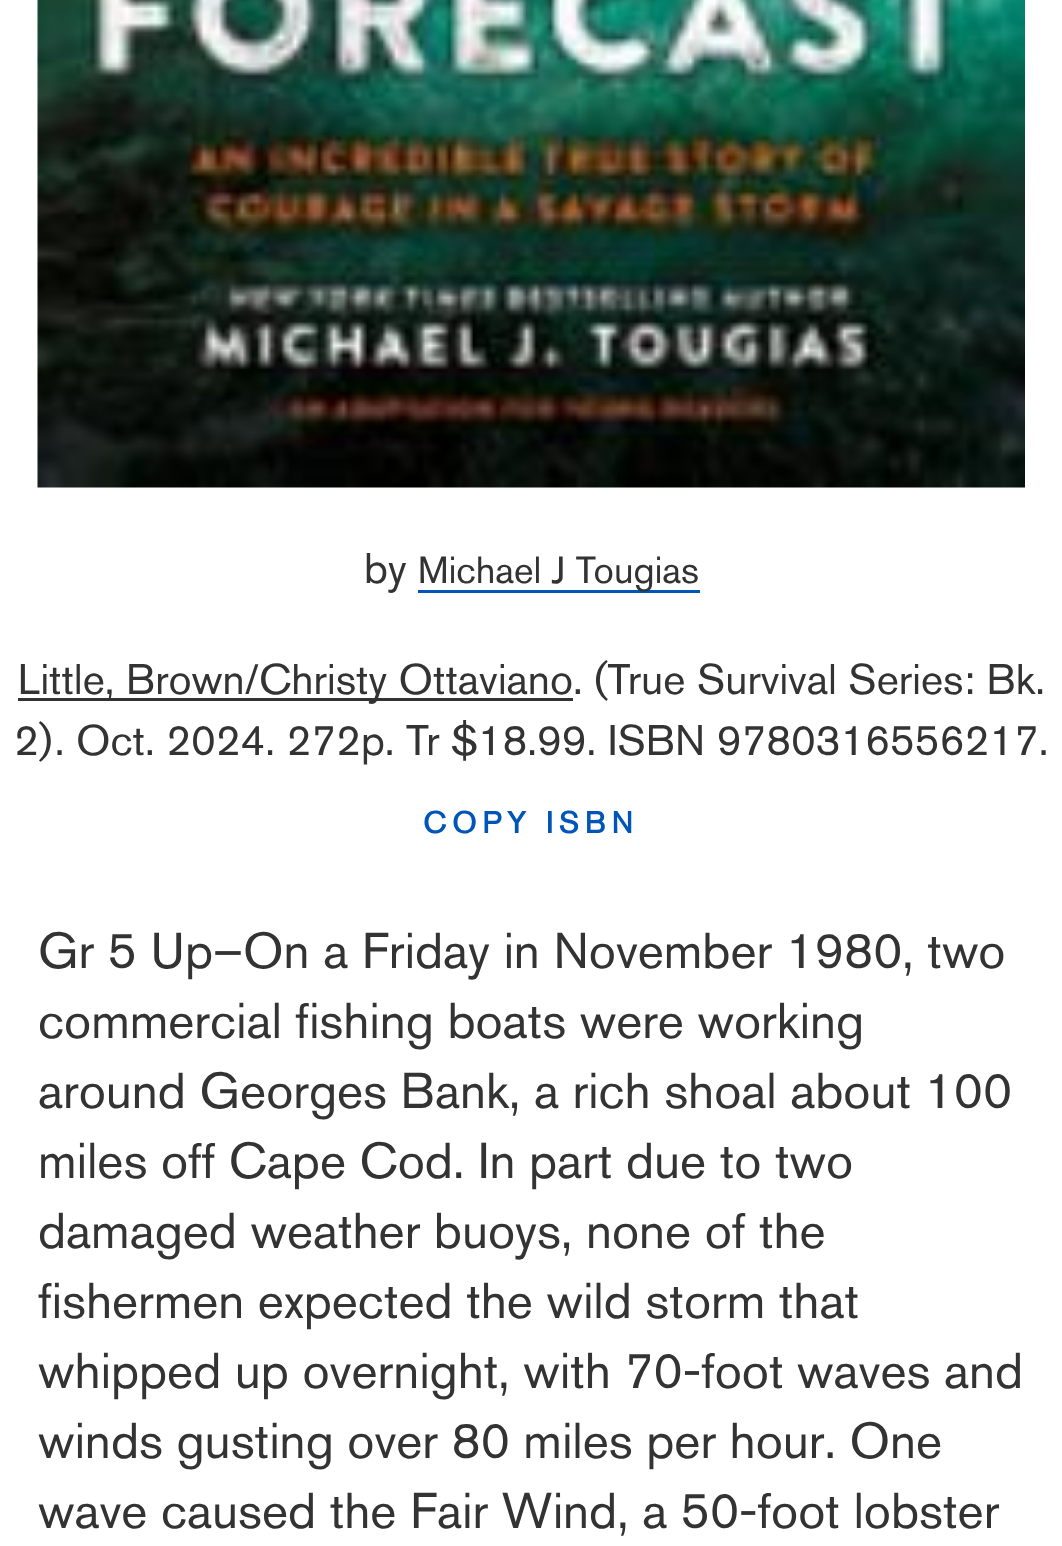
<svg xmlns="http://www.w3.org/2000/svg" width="1062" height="1546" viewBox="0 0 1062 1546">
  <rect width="100%" height="100%" fill="#ffffff"/>
  <image x="37" y="0" width="988" height="488" href="img1.png"/>
  <text x="364" y="583" font-family="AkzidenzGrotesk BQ" font-size="42.5" font-weight="500" fill="#333333">by</text>
  <rect x="418" y="590" width="282" height="3" fill="#0055b8"/>
  <text x="418" y="583" font-family="AkzidenzGrotesk BQ" font-size="37.5" font-weight="500" fill="#333333">Michael J Tougias</text>
  <rect x="18" y="698" width="555" height="3" fill="#333333"/>
  <text x="18" y="694" font-family="AkzidenzGrotesk BQ" font-size="42.5" font-weight="500" fill="#333333">Little, Brown/Christy Ottaviano. (True Survival Series: Bk.</text>
  <text x="14" y="755" font-family="AkzidenzGrotesk BQ" font-size="42.5" font-weight="500" fill="#333333">2). Oct. 2024. 272p. Tr $18.99. ISBN 9780316556217.</text>
  <text x="423" y="833" font-family="AkzidenzGrotesk BQ" font-size="30" font-weight="bold" letter-spacing="6" fill="#0055b8">COPY ISBN</text>
  <text x="38" y="968" font-family="AkzidenzGrotesk BQ" font-size="50" font-weight="500" fill="#333333">Gr 5 Up–On a Friday in November 1980, two</text>
  <text x="38" y="1038" font-family="AkzidenzGrotesk BQ" font-size="50" font-weight="500" fill="#333333">commercial fishing boats were working</text>
  <text x="38" y="1108" font-family="AkzidenzGrotesk BQ" font-size="50" font-weight="500" fill="#333333">around Georges Bank, a rich shoal about 100</text>
  <text x="38" y="1178" font-family="AkzidenzGrotesk BQ" font-size="50" font-weight="500" fill="#333333">miles off Cape Cod. In part due to two</text>
  <text x="38" y="1248" font-family="AkzidenzGrotesk BQ" font-size="50" font-weight="500" fill="#333333">damaged weather buoys, none of the</text>
  <text x="38" y="1318" font-family="AkzidenzGrotesk BQ" font-size="50" font-weight="500" fill="#333333">fishermen expected the wild storm that</text>
  <text x="38" y="1388" font-family="AkzidenzGrotesk BQ" font-size="50" font-weight="500" fill="#333333">whipped up overnight, with 70-foot waves and</text>
  <text x="38" y="1458" font-family="AkzidenzGrotesk BQ" font-size="50" font-weight="500" fill="#333333">winds gusting over 80 miles per hour. One</text>
  <text x="38" y="1528" font-family="AkzidenzGrotesk BQ" font-size="50" font-weight="500" fill="#333333">wave caused the Fair Wind, a 50-foot lobster</text>
</svg>
